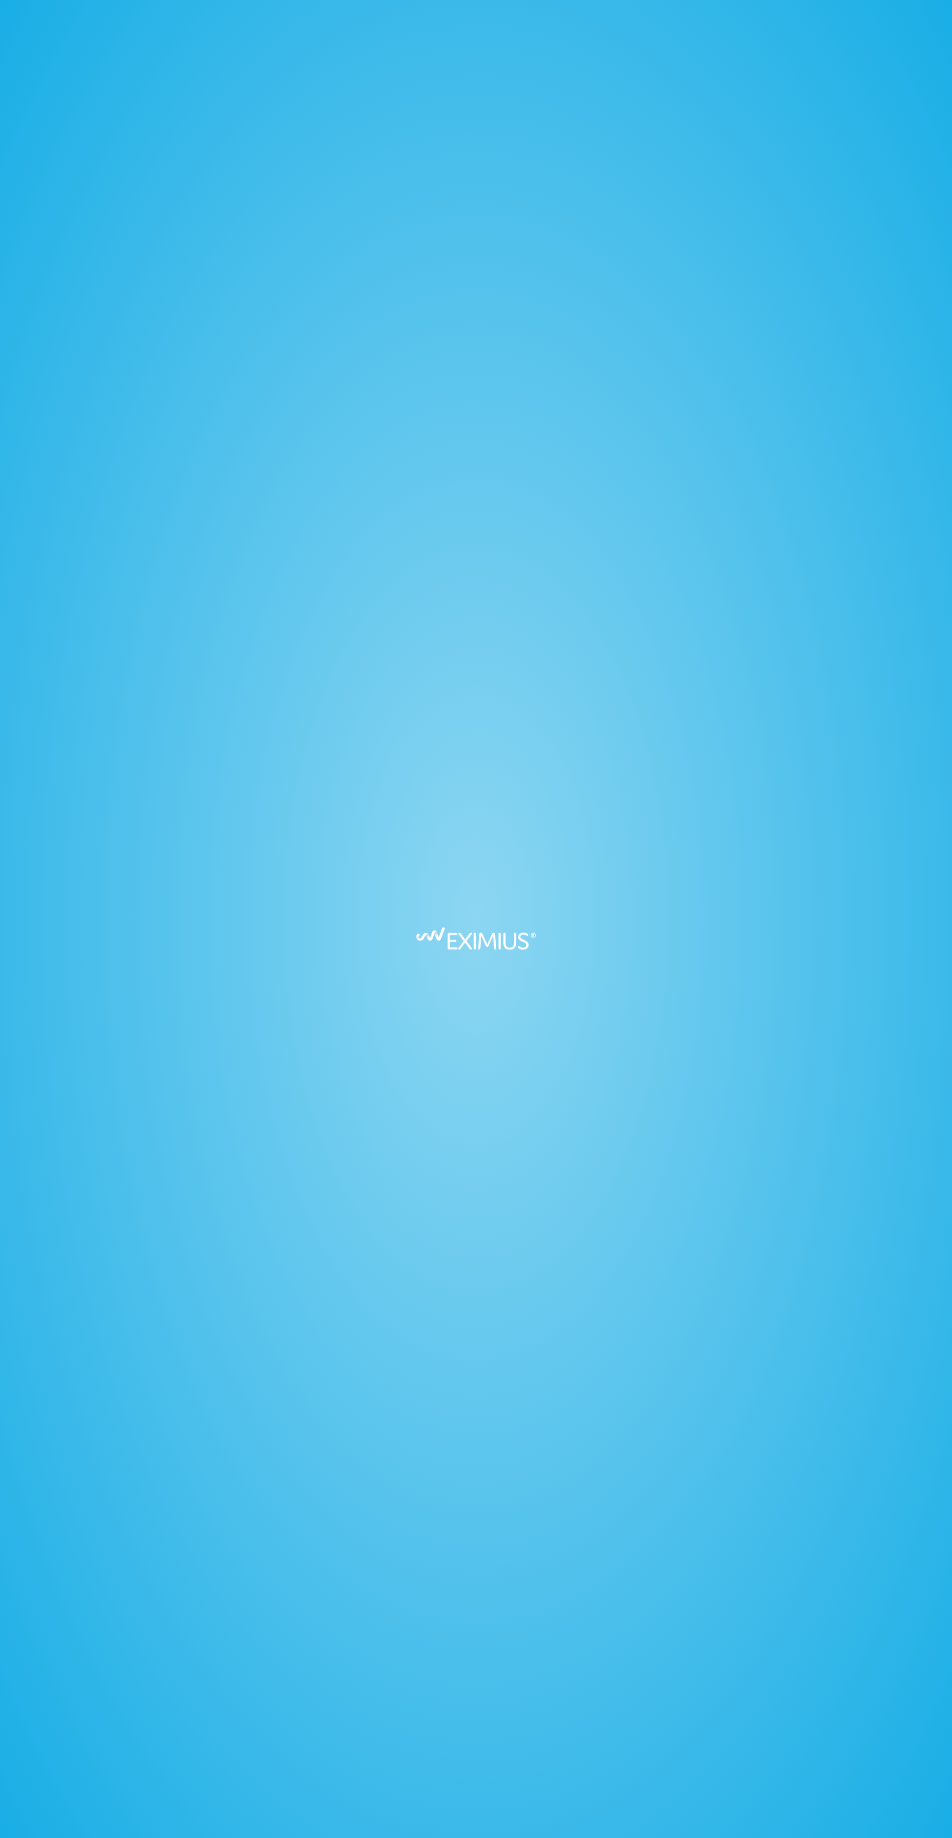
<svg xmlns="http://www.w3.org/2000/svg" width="952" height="1838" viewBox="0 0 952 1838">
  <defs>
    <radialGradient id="g1" gradientUnits="userSpaceOnUse" cx="0" cy="0" r="1" gradientTransform="matrix(673 0 0 1300 476 919)"><stop offset="0" stop-color="#8cd6f2"/><stop offset="1" stop-color="#19aee6"/></radialGradient>
  </defs>
  <rect width="100%" height="100%" fill="#ffffff"/>
  <rect x="0" y="0" width="952" height="1838" fill="url(#g1)"/>
  <image x="416" y="927" width="120" height="23" href="img1.png"/>
</svg>
